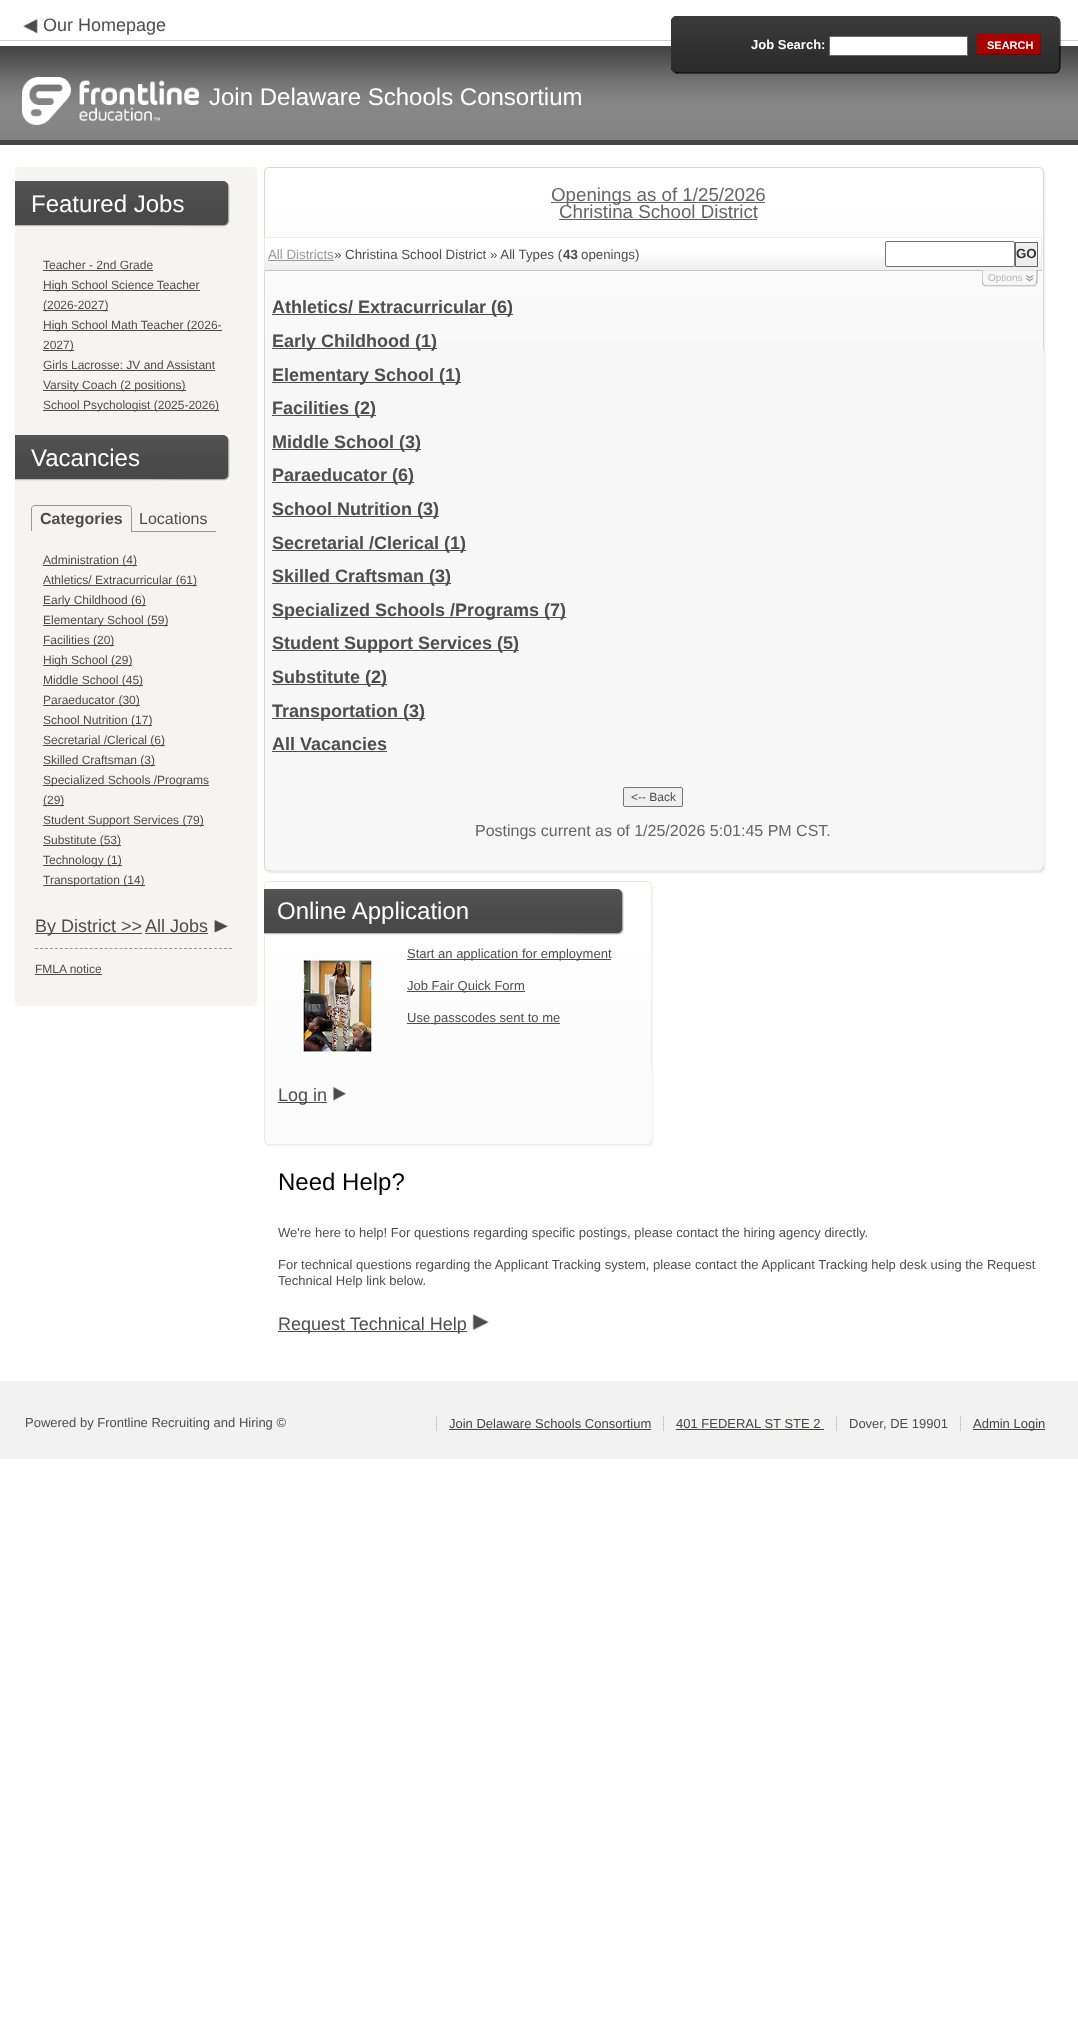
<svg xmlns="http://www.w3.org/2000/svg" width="1078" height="2032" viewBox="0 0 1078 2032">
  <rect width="100%" height="100%" fill="#ffffff"/>
  <rect x="0" y="46" width="1078" height="99" fill="#808080"/>
  <image x="0" y="0" width="1078" height="145" href="img1.png"/>
  <image x="23" y="19" width="15" height="15" href="img2.png"/>
  <text x="43" y="31" font-family="Liberation Sans" font-size="18" fill="#4e4e4e">Our Homepage</text>
  <image x="22" y="77" width="177" height="48" href="img3.png"/>
  <text x="209" y="105" font-family="Liberation Sans" font-size="24" fill="#ffffff">Join Delaware Schools Consortium</text>
  <image x="676" y="16" width="378" height="58" href="img4.png"/>
  <image x="1054" y="16" width="7" height="58" href="img5.png"/>
  <image x="671" y="16" width="7" height="58" href="img6.png"/>
  <text x="751" y="49" font-family="Liberation Sans" font-size="13" font-weight="bold" fill="#ffffff">Job Search:</text>
  <rect x="829.5" y="36.5" width="138" height="19" fill="#ffffff" stroke="#666666"/>
  <image x="979" y="34" width="60" height="21" href="img7.png"/>
  <image x="1039" y="34" width="2" height="21" href="img8.png"/>
  <image x="977" y="34" width="2" height="21" href="img9.png"/>
  <text x="987" y="49" font-family="Liberation Sans" font-size="11" font-weight="bold" fill="#ffffff">SEARCH</text>
  <rect x="15" y="167" width="242" height="839" fill="#f6f4f1"/>
  <rect x="254" y="1003" width="3" height="3" fill="#fbfaf8"/>
  <rect x="15" y="1003" width="3" height="3" fill="#fbfaf8"/>
  <rect x="254" y="167" width="3" height="3" fill="#fbfaf8"/>
  <rect x="15" y="167" width="3" height="3" fill="#fbfaf8"/>
  <image x="15" y="181" width="139" height="46" href="img10.png"/>
  <image x="154" y="181" width="76" height="46" href="img11.png"/>
  <text x="31" y="212" font-family="Liberation Sans" font-size="24" fill="#ffffff">Featured Jobs</text>
  <text x="43" y="269" font-family="Liberation Sans" font-size="12" fill="#4e4e4e">Teacher - 2nd Grade</text>
  <rect x="43" y="270" width="110" height="1" fill="#4e4e4e"/>
  <rect x="43" y="290" width="157" height="1" fill="#4e4e4e"/>
  <text x="43" y="289" font-family="Liberation Sans" font-size="12" fill="#4e4e4e">High School Science Teacher</text>
  <rect x="43" y="310" width="65" height="1" fill="#4e4e4e"/>
  <text x="43" y="309" font-family="Liberation Sans" font-size="12" fill="#4e4e4e">(2026-2027)</text>
  <rect x="43" y="330" width="179" height="1" fill="#4e4e4e"/>
  <text x="43" y="329" font-family="Liberation Sans" font-size="12" fill="#4e4e4e">High School Math Teacher (2026-</text>
  <rect x="43" y="350" width="31" height="1" fill="#4e4e4e"/>
  <text x="43" y="349" font-family="Liberation Sans" font-size="12" fill="#4e4e4e">2027)</text>
  <text x="43" y="369" font-family="Liberation Sans" font-size="12" fill="#4e4e4e">Girls Lacrosse: JV and Assistant</text>
  <rect x="43" y="370" width="172" height="1" fill="#4e4e4e"/>
  <rect x="43" y="390" width="143" height="1" fill="#4e4e4e"/>
  <text x="43" y="389" font-family="Liberation Sans" font-size="12" fill="#4e4e4e">Varsity Coach (2 positions)</text>
  <rect x="43" y="410" width="176" height="1" fill="#4e4e4e"/>
  <text x="43" y="409" font-family="Liberation Sans" font-size="12" fill="#4e4e4e">School Psychologist (2025-2026)</text>
  <image x="15" y="435" width="139" height="46" href="img10.png"/>
  <image x="154" y="435" width="76" height="46" href="img11.png"/>
  <text x="31" y="466" font-family="Liberation Sans" font-size="24" fill="#ffffff">Vacancies</text>
  <path d="M35 505H128C130 505 132 507 132 509V531H31V509C31 507 33 505 35 505ZM35 506H128C130 506 131 507 131 509V531H32V509C32 507 33 506 35 506Z" fill="#999999" fill-rule="evenodd"/>
  <text x="40" y="524" font-family="Liberation Sans" font-size="16" font-weight="bold" fill="#4e4e4e">Categories</text>
  <text x="139" y="524" font-family="Liberation Sans" font-size="16" fill="#4e4e4e">Locations</text>
  <rect x="131" y="531" width="85" height="1" fill="#999999"/>
  <rect x="43" y="565" width="94" height="1" fill="#4e4e4e"/>
  <text x="43" y="564" font-family="Liberation Sans" font-size="12" fill="#4e4e4e">Administration (4)</text>
  <rect x="43" y="585" width="154" height="1" fill="#4e4e4e"/>
  <text x="43" y="584" font-family="Liberation Sans" font-size="12" fill="#4e4e4e">Athletics/ Extracurricular (61)</text>
  <rect x="43" y="605" width="103" height="1" fill="#4e4e4e"/>
  <text x="43" y="604" font-family="Liberation Sans" font-size="12" fill="#4e4e4e">Early Childhood (6)</text>
  <rect x="43" y="625" width="125" height="1" fill="#4e4e4e"/>
  <text x="43" y="624" font-family="Liberation Sans" font-size="12" fill="#4e4e4e">Elementary School (59)</text>
  <rect x="43" y="645" width="71" height="1" fill="#4e4e4e"/>
  <text x="43" y="644" font-family="Liberation Sans" font-size="12" fill="#4e4e4e">Facilities (20)</text>
  <rect x="43" y="665" width="89" height="1" fill="#4e4e4e"/>
  <text x="43" y="664" font-family="Liberation Sans" font-size="12" fill="#4e4e4e">High School (29)</text>
  <rect x="43" y="685" width="100" height="1" fill="#4e4e4e"/>
  <text x="43" y="684" font-family="Liberation Sans" font-size="12" fill="#4e4e4e">Middle School (45)</text>
  <rect x="43" y="705" width="97" height="1" fill="#4e4e4e"/>
  <text x="43" y="704" font-family="Liberation Sans" font-size="12" fill="#4e4e4e">Paraeducator (30)</text>
  <rect x="43" y="725" width="109" height="1" fill="#4e4e4e"/>
  <text x="43" y="724" font-family="Liberation Sans" font-size="12" fill="#4e4e4e">School Nutrition (17)</text>
  <rect x="43" y="745" width="122" height="1" fill="#4e4e4e"/>
  <text x="43" y="744" font-family="Liberation Sans" font-size="12" fill="#4e4e4e">Secretarial /Clerical (6)</text>
  <rect x="43" y="765" width="112" height="1" fill="#4e4e4e"/>
  <text x="43" y="764" font-family="Liberation Sans" font-size="12" fill="#4e4e4e">Skilled Craftsman (3)</text>
  <rect x="43" y="785" width="166" height="1" fill="#4e4e4e"/>
  <text x="43" y="784" font-family="Liberation Sans" font-size="12" fill="#4e4e4e">Specialized Schools /Programs</text>
  <rect x="43" y="805" width="21" height="1" fill="#4e4e4e"/>
  <text x="43" y="804" font-family="Liberation Sans" font-size="12" fill="#4e4e4e">(29)</text>
  <rect x="43" y="825" width="161" height="1" fill="#4e4e4e"/>
  <text x="43" y="824" font-family="Liberation Sans" font-size="12" fill="#4e4e4e">Student Support Services (79)</text>
  <rect x="43" y="845" width="78" height="1" fill="#4e4e4e"/>
  <text x="43" y="844" font-family="Liberation Sans" font-size="12" fill="#4e4e4e">Substitute (53)</text>
  <rect x="43" y="865" width="79" height="1" fill="#4e4e4e"/>
  <text x="43" y="864" font-family="Liberation Sans" font-size="12" fill="#4e4e4e">Technology (1)</text>
  <rect x="43" y="885" width="102" height="1" fill="#4e4e4e"/>
  <text x="43" y="884" font-family="Liberation Sans" font-size="12" fill="#4e4e4e">Transportation (14)</text>
  <rect x="35" y="933" width="107" height="1" fill="#4e4e4e"/>
  <text x="35" y="932" font-family="Liberation Sans" font-size="18" fill="#4e4e4e">By District &gt;&gt;</text>
  <text x="145" y="932" font-family="Liberation Sans" font-size="18" fill="#4e4e4e">All Jobs</text>
  <rect x="145" y="933" width="63" height="1" fill="#4e4e4e"/>
  <image x="214" y="920" width="14" height="13" href="img12.png"/>
  <path d="M35 948.5H232" fill="none" stroke="#999999" stroke-dasharray="3 1.97"/>
  <text x="35" y="973" font-family="Liberation Sans" font-size="12" fill="#4e4e4e">FMLA notice</text>
  <rect x="35" y="974" width="67" height="1" fill="#4e4e4e"/>
  <rect x="265" y="350" width="778" height="524" fill="#f7f7f7"/>
  <rect x="264" y="870" width="782" height="3" fill="#ebebeb"/>
  <rect x="1043" y="350" width="3" height="524" fill="#f0f0f0"/>
  <rect x="264" y="350" width="1" height="524" fill="#dbd9cc"/>
  <image x="269" y="167" width="770" height="183" href="img13.png"/>
  <image x="1039" y="866" width="7" height="8" href="img14.png"/>
  <image x="264" y="867" width="7" height="7" href="img15.png"/>
  <image x="1039" y="167" width="7" height="183" href="img16.png"/>
  <image x="264" y="167" width="5" height="183" href="img17.png"/>
  <rect x="551" y="202" width="214" height="1" fill="#666666"/>
  <text x="551" y="201" font-family="Liberation Sans" font-size="18.75" fill="#666666">Openings as of 1/25/2026</text>
  <text x="559" y="218" font-family="Liberation Sans" font-size="18.75" fill="#666666">Christina School District</text>
  <rect x="559" y="219" width="198" height="1" fill="#666666"/>
  <image x="265" y="238" width="776" height="32" href="img18.png"/>
  <rect x="264" y="237" width="778" height="1" fill="#ebebeb"/>
  <rect x="1041" y="237" width="1" height="34" fill="#ebebeb"/>
  <rect x="264" y="270" width="778" height="1" fill="#c7c7c7"/>
  <rect x="264" y="237" width="1" height="34" fill="#ebebeb"/>
  <text x="268" y="259" font-family="Liberation Sans" font-size="13.3" fill="#999999">All Districts</text>
  <rect x="268" y="260" width="66" height="1" fill="#999999"/>
  <text x="334" y="259" font-family="Liberation Sans" font-size="13.3" fill="#4e4e4e">» Christina School District » All Types (</text>
  <text x="563" y="259" font-family="Liberation Sans" font-size="13.3" font-weight="bold" fill="#4e4e4e">43</text>
  <text x="581" y="259" font-family="Liberation Sans" font-size="13.3" fill="#4e4e4e">openings)</text>
  <rect x="885.5" y="241.5" width="129" height="25" rx="1.5" fill="#ffffff" stroke="#767676"/>
  <rect x="1015.5" y="242.5" width="22" height="24" fill="#eeeeee" stroke="#666666"/>
  <text x="1016" y="258" font-family="Liberation Sans" font-size="13.3" font-weight="bold" fill="#333333">GO</text>
  <image x="982" y="270" width="56" height="17" href="img19.png"/>
  <text x="988" y="281" font-family="Liberation Sans" font-size="10" fill="#b5b5b5">Options</text>
  <rect x="272" y="314" width="241" height="1" fill="#4e4e4e"/>
  <text x="272" y="313" font-family="Liberation Sans" font-size="18" font-weight="bold" fill="#4e4e4e">Athletics/ Extracurricular (6)</text>
  <rect x="272" y="348" width="165" height="1" fill="#4e4e4e"/>
  <text x="272" y="347" font-family="Liberation Sans" font-size="18" font-weight="bold" fill="#4e4e4e">Early Childhood (1)</text>
  <rect x="272" y="382" width="189" height="1" fill="#4e4e4e"/>
  <text x="272" y="381" font-family="Liberation Sans" font-size="18" font-weight="bold" fill="#4e4e4e">Elementary School (1)</text>
  <rect x="272" y="415" width="104" height="1" fill="#4e4e4e"/>
  <text x="272" y="414" font-family="Liberation Sans" font-size="18" font-weight="bold" fill="#4e4e4e">Facilities (2)</text>
  <rect x="272" y="449" width="149" height="1" fill="#4e4e4e"/>
  <text x="272" y="448" font-family="Liberation Sans" font-size="18" font-weight="bold" fill="#4e4e4e">Middle School (3)</text>
  <rect x="272" y="482" width="142" height="1" fill="#4e4e4e"/>
  <text x="272" y="481" font-family="Liberation Sans" font-size="18" font-weight="bold" fill="#4e4e4e">Paraeducator (6)</text>
  <rect x="272" y="516" width="167" height="1" fill="#4e4e4e"/>
  <text x="272" y="515" font-family="Liberation Sans" font-size="18" font-weight="bold" fill="#4e4e4e">School Nutrition (3)</text>
  <rect x="272" y="550" width="194" height="1" fill="#4e4e4e"/>
  <text x="272" y="549" font-family="Liberation Sans" font-size="18" font-weight="bold" fill="#4e4e4e">Secretarial /Clerical (1)</text>
  <rect x="272" y="583" width="179" height="1" fill="#4e4e4e"/>
  <text x="272" y="582" font-family="Liberation Sans" font-size="18" font-weight="bold" fill="#4e4e4e">Skilled Craftsman (3)</text>
  <rect x="272" y="617" width="294" height="1" fill="#4e4e4e"/>
  <text x="272" y="616" font-family="Liberation Sans" font-size="18" font-weight="bold" fill="#4e4e4e">Specialized Schools /Programs (7)</text>
  <rect x="272" y="650" width="247" height="1" fill="#4e4e4e"/>
  <text x="272" y="649" font-family="Liberation Sans" font-size="18" font-weight="bold" fill="#4e4e4e">Student Support Services (5)</text>
  <rect x="272" y="684" width="115" height="1" fill="#4e4e4e"/>
  <text x="272" y="683" font-family="Liberation Sans" font-size="18" font-weight="bold" fill="#4e4e4e">Substitute (2)</text>
  <rect x="272" y="718" width="153" height="1" fill="#4e4e4e"/>
  <text x="272" y="717" font-family="Liberation Sans" font-size="18" font-weight="bold" fill="#4e4e4e">Transportation (3)</text>
  <text x="272" y="750" font-family="Liberation Sans" font-size="18" font-weight="bold" fill="#4e4e4e">All Vacancies</text>
  <rect x="272" y="751" width="115" height="1" fill="#4e4e4e"/>
  <rect x="623.5" y="787.5" width="59" height="19" rx="1.5" fill="#efefef" stroke="#767676"/>
  <text x="631" y="801" font-family="Liberation Sans" font-size="12" fill="#4e4e4e">&lt;-- Back</text>
  <text x="475" y="836" font-family="Liberation Sans" font-size="16" fill="#666666">Postings current as of 1/25/2026 5:01:45 PM CST.</text>
  <rect x="265" y="1071" width="386" height="77" fill="#fbfbfb"/>
  <image x="268" y="1144" width="380" height="2" href="img20.png"/>
  <rect x="651" y="1071" width="3" height="68" fill="#f7f7f7"/>
  <rect x="264" y="1071" width="1" height="77" fill="#ebeae3"/>
  <image x="268" y="881" width="380" height="190" href="img21.png"/>
  <image x="648" y="1139" width="6" height="9" href="img22.png"/>
  <image x="264" y="1141" width="4" height="7" href="img23.png"/>
  <image x="648" y="881" width="6" height="190" href="img24.png"/>
  <image x="264" y="881" width="4" height="190" href="img25.png"/>
  <image x="264" y="889" width="284" height="46" href="img26.png"/>
  <image x="548" y="889" width="76" height="46" href="img11.png"/>
  <text x="277" y="919" font-family="Liberation Sans" font-size="24" fill="#ffffff">Online Application</text>
  <rect x="407" y="959" width="204" height="1" fill="#4e4e4e"/>
  <text x="407" y="958" font-family="Liberation Sans" font-size="13" fill="#4e4e4e">Start an application for employment</text>
  <image x="302" y="956" width="71" height="100" href="img27.png"/>
  <rect x="407" y="991" width="118" height="1" fill="#4e4e4e"/>
  <text x="407" y="990" font-family="Liberation Sans" font-size="13" fill="#4e4e4e">Job Fair Quick Form</text>
  <rect x="407" y="1023" width="153" height="1" fill="#4e4e4e"/>
  <text x="407" y="1022" font-family="Liberation Sans" font-size="13" fill="#4e4e4e">Use passcodes sent to me</text>
  <rect x="278" y="1102" width="49" height="1" fill="#4e4e4e"/>
  <text x="278" y="1101" font-family="Liberation Sans" font-size="18" fill="#4e4e4e">Log in</text>
  <image x="333" y="1087" width="13" height="14" href="img28.png"/>
  <text x="278" y="1190" font-family="Liberation Sans" font-size="24" fill="#000000">Need Help?</text>
  <text x="278" y="1237" font-family="Liberation Sans" font-size="13" fill="#4e4e4e">We're here to help! For questions regarding specific postings, please contact the hiring agency directly.</text>
  <text x="278" y="1269" font-family="Liberation Sans" font-size="13" fill="#4e4e4e">For technical questions regarding the Applicant Tracking system, please contact the Applicant Tracking help desk using the Request</text>
  <text x="278" y="1285" font-family="Liberation Sans" font-size="13" fill="#4e4e4e">Technical Help link below.</text>
  <rect x="278" y="1331" width="189" height="1" fill="#4e4e4e"/>
  <text x="278" y="1330" font-family="Liberation Sans" font-size="18" fill="#4e4e4e">Request Technical Help</text>
  <image x="472" y="1314" width="17" height="17" href="img29.png"/>
  <rect x="0" y="1381" width="1078" height="78" fill="#f2f2f2"/>
  <text x="25" y="1427" font-family="Liberation Sans" font-size="13" fill="#4e4e4e">Powered by Frontline Recruiting and Hiring ©</text>
  <image x="436" y="1416" width="1" height="15" href="img30.png"/>
  <text x="449" y="1428" font-family="Liberation Sans" font-size="13" fill="#484640">Join Delaware Schools Consortium</text>
  <rect x="449" y="1429" width="202" height="1" fill="#484640"/>
  <image x="663" y="1416" width="1" height="15" href="img30.png"/>
  <text x="676" y="1428" font-family="Liberation Sans" font-size="13" fill="#484640">401 FEDERAL ST STE 2</text>
  <rect x="676" y="1429" width="148" height="1" fill="#484640"/>
  <image x="836" y="1416" width="1" height="15" href="img30.png"/>
  <text x="849" y="1428" font-family="Liberation Sans" font-size="13" fill="#4e4e4e">Dover, DE 19901</text>
  <image x="960" y="1416" width="1" height="15" href="img30.png"/>
  <rect x="973" y="1429" width="72" height="1" fill="#484640"/>
  <text x="973" y="1428" font-family="Liberation Sans" font-size="13" fill="#484640">Admin Login</text>
</svg>
